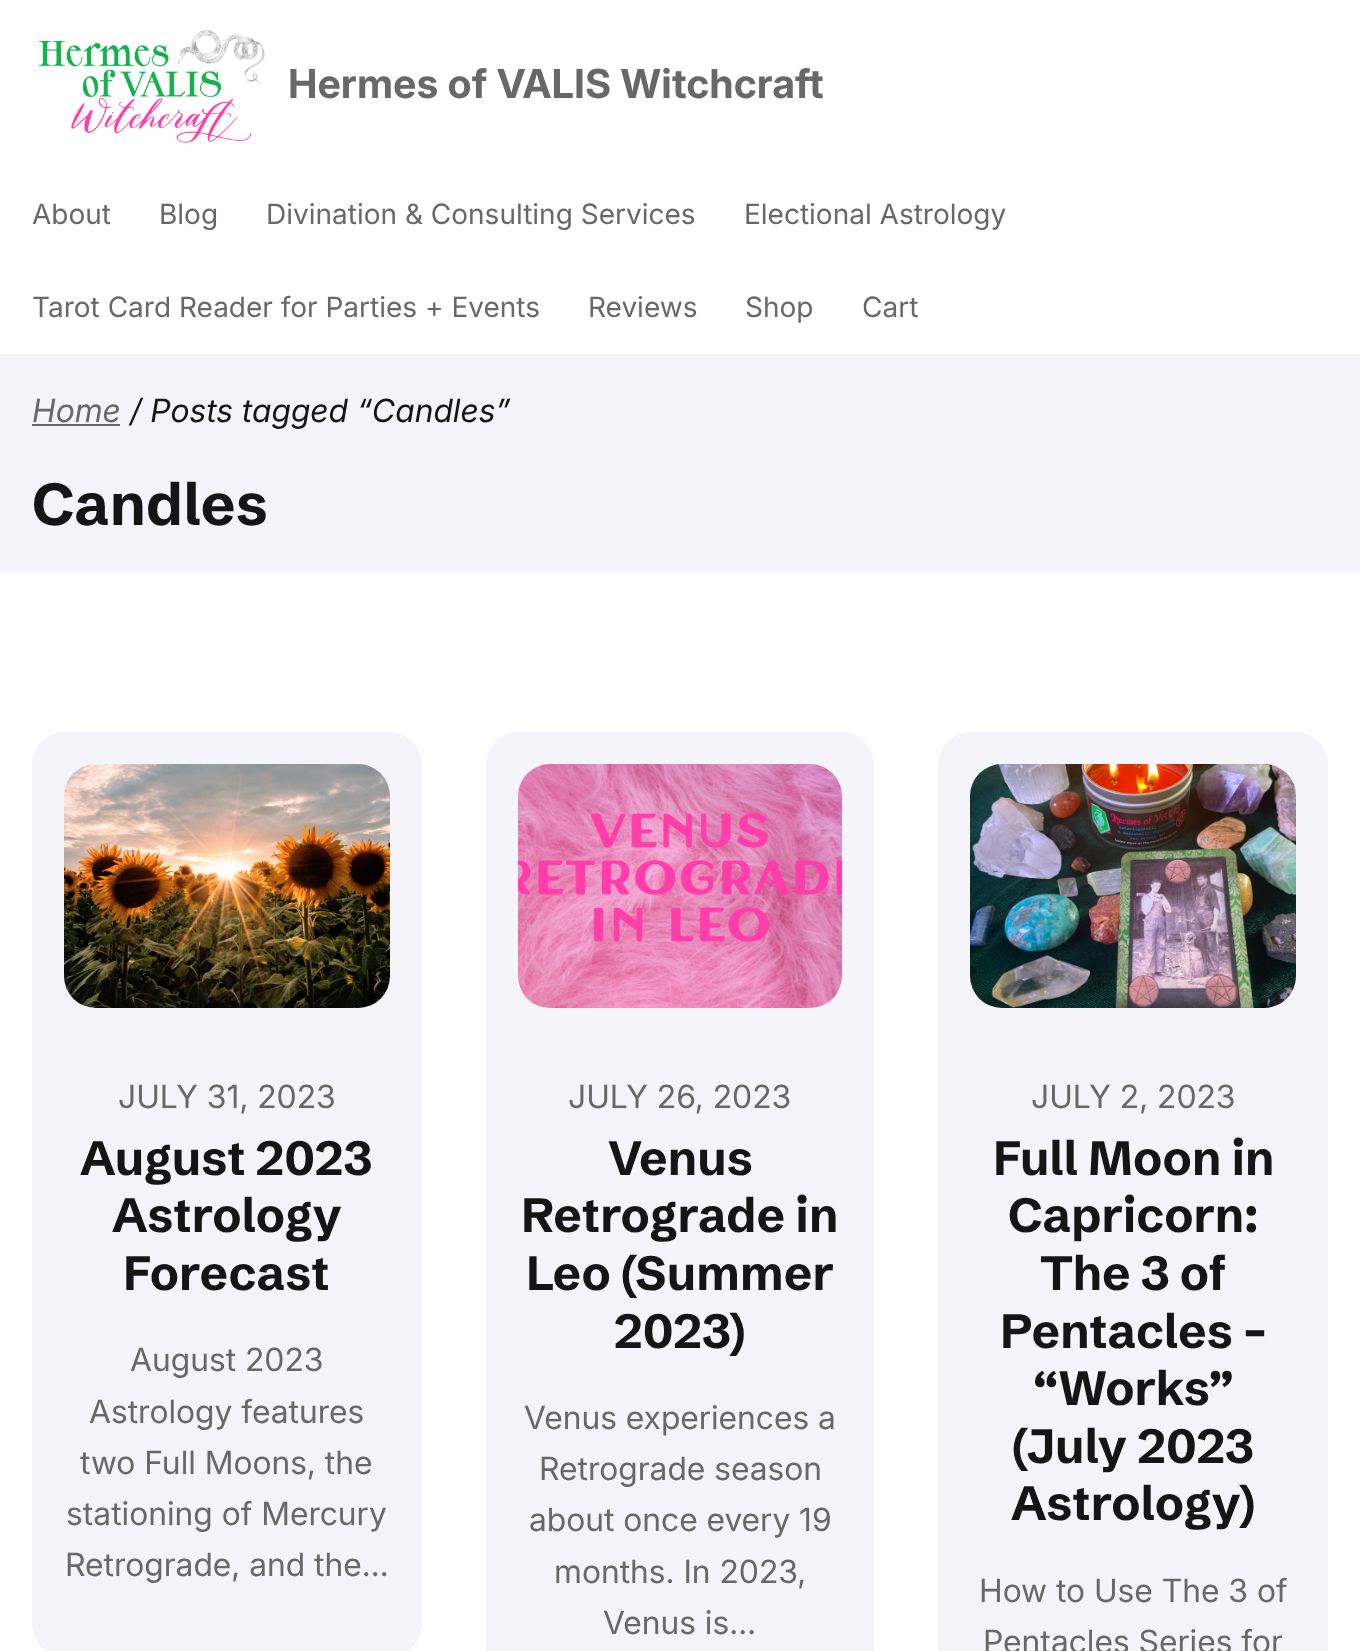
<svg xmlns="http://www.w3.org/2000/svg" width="1360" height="1651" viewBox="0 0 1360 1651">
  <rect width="100%" height="100%" fill="#ffffff"/>
  <image x="38" y="29" width="227" height="114" href="img1.png"/>
  <text x="288" y="98" font-family="Inter" font-size="40" font-weight="bold" fill="#686868">Hermes of VALIS Witchcraft</text>
  <text x="32" y="224" font-family="'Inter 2'" font-size="28" fill="#686868">About</text>
  <text x="159" y="224" font-family="'Inter 2'" font-size="28" fill="#686868">Blog</text>
  <text x="266" y="224" font-family="'Inter 2'" font-size="28" fill="#686868">Divination &amp; Consulting Services</text>
  <text x="744" y="224" font-family="'Inter 2'" font-size="28" fill="#686868">Electional Astrology</text>
  <text x="32" y="317" font-family="'Inter 2'" font-size="28" fill="#686868">Tarot Card Reader for Parties + Events</text>
  <text x="588" y="317" font-family="'Inter 2'" font-size="28" fill="#686868">Reviews</text>
  <text x="745" y="317" font-family="'Inter 2'" font-size="28" fill="#686868">Shop</text>
  <text x="862" y="317" font-family="'Inter 2'" font-size="28" fill="#686868">Cart</text>
  <rect x="0" y="354" width="1360" height="218" fill="#f6f4fb"/>
  <text x="32" y="422" font-family="Inter" font-size="32" font-style="italic" fill="#686868">Home</text>
  <rect x="32" y="424" width="88" height="2" fill="#686868"/>
  <text x="130" y="422" font-family="Inter" font-size="32" font-style="italic" fill="#161515">/ Posts tagged “Candles”</text>
  <text x="32" y="525" font-family="Schibsted Grotesk" font-size="59" font-weight="bold" fill="#161515">Candles</text>
  <rect x="32" y="732" width="390" height="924" rx="32" fill="#f6f4fb"/>
  <image x="64" y="764" width="326" height="244" href="img2.png"/>
  <text x="118" y="1108" font-family="Inter" font-size="32" fill="#686868">JULY 31, 2023</text>
  <text x="80" y="1175" font-family="Schibsted Grotesk" font-size="48" font-weight="bold" fill="#161515">August 2023</text>
  <text x="112" y="1232" font-family="Schibsted Grotesk" font-size="48" font-weight="bold" fill="#161515">Astrology</text>
  <text x="123" y="1290" font-family="Schibsted Grotesk" font-size="48" font-weight="bold" fill="#161515">Forecast</text>
  <text x="130" y="1371" font-family="Inter" font-size="32" fill="#686868">August 2023</text>
  <text x="89" y="1423" font-family="Inter" font-size="32" fill="#686868">Astrology features</text>
  <text x="80" y="1474" font-family="Inter" font-size="32" fill="#686868">two Full Moons, the</text>
  <text x="66" y="1525" font-family="Inter" font-size="32" fill="#686868">stationing of Mercury</text>
  <text x="65" y="1576" font-family="Inter" font-size="32" fill="#686868">Retrograde, and the…</text>
  <rect x="486" y="732" width="388" height="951" rx="32" fill="#f6f4fb"/>
  <image x="518" y="764" width="324" height="244" href="img3.png"/>
  <text x="568" y="1108" font-family="Inter" font-size="32" fill="#686868">JULY 26, 2023</text>
  <text x="608" y="1175" font-family="Schibsted Grotesk" font-size="48" font-weight="bold" fill="#161515">Venus</text>
  <text x="521" y="1232" font-family="Schibsted Grotesk" font-size="48" font-weight="bold" fill="#161515">Retrograde in</text>
  <text x="526" y="1290" font-family="Schibsted Grotesk" font-size="48" font-weight="bold" fill="#161515">Leo (Summer</text>
  <text x="614" y="1348" font-family="Schibsted Grotesk" font-size="48" font-weight="bold" fill="#161515">2023)</text>
  <text x="524" y="1429" font-family="Inter" font-size="32" fill="#686868">Venus experiences a</text>
  <text x="539" y="1480" font-family="Inter" font-size="32" fill="#686868">Retrograde season</text>
  <text x="529" y="1531" font-family="Inter" font-size="32" fill="#686868">about once every 19</text>
  <text x="554" y="1583" font-family="Inter" font-size="32" fill="#686868">months. In 2023,</text>
  <text x="603" y="1634" font-family="Inter" font-size="32" fill="#686868">Venus is…</text>
  <rect x="938" y="732" width="390" height="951" rx="32" fill="#f6f4fb"/>
  <image x="970" y="764" width="326" height="244" href="img4.png"/>
  <text x="1031" y="1108" font-family="Inter" font-size="32" fill="#686868">JULY 2, 2023</text>
  <text x="993" y="1175" font-family="Schibsted Grotesk" font-size="48" font-weight="bold" fill="#161515">Full Moon in</text>
  <text x="1008" y="1232" font-family="Schibsted Grotesk" font-size="48" font-weight="bold" fill="#161515">Capricorn:</text>
  <text x="1040" y="1290" font-family="Schibsted Grotesk" font-size="48" font-weight="bold" fill="#161515">The 3 of</text>
  <text x="1000" y="1348" font-family="Schibsted Grotesk" font-size="48" font-weight="bold" fill="#161515">Pentacles –</text>
  <text x="1033" y="1405" font-family="Schibsted Grotesk" font-size="48" font-weight="bold" fill="#161515">“Works”</text>
  <text x="1012" y="1463" font-family="Schibsted Grotesk" font-size="48" font-weight="bold" fill="#161515">(July 2023</text>
  <text x="1011" y="1520" font-family="Schibsted Grotesk" font-size="48" font-weight="bold" fill="#161515">Astrology)</text>
  <text x="979" y="1602" font-family="Inter" font-size="32" fill="#686868">How to Use The 3 of</text>
  <text x="983" y="1653" font-family="Inter" font-size="32" fill="#686868">Pentacles Series for</text>
</svg>
